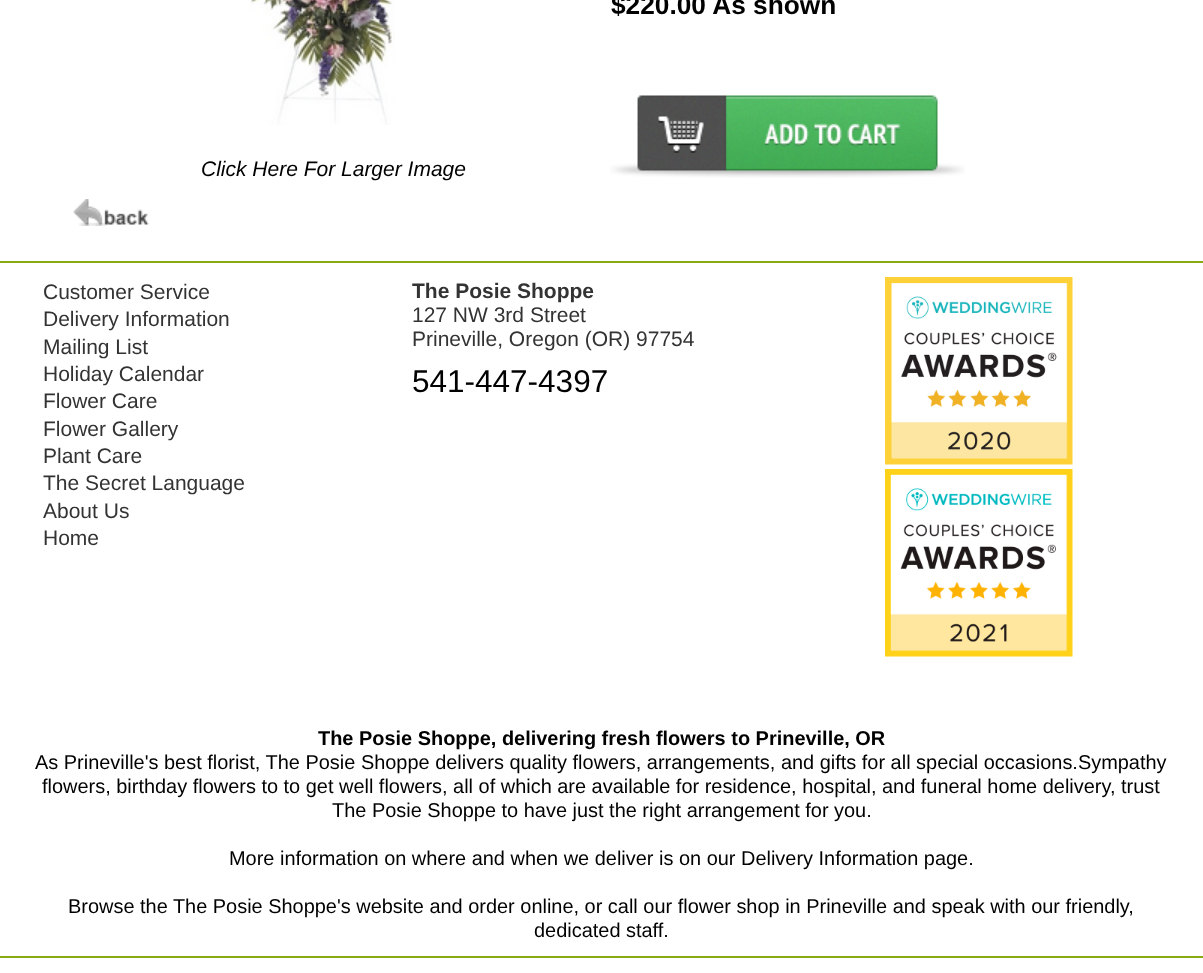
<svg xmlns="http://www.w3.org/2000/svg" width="1203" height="973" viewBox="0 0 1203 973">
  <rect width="100%" height="100%" fill="#ffffff"/>
  <text x="611" y="14" font-family="Liberation Sans" font-size="26.25" font-weight="bold" fill="#000000">$220.00 As shown</text>
  <image x="610" y="95" width="355" height="83" href="img1.png"/>
  <image x="250" y="0" width="145" height="125" href="img2.png"/>
  <text x="201" y="176" font-family="Liberation Sans" font-size="21" font-style="italic" fill="#000000">Click Here For Larger Image</text>
  <image x="73" y="199" width="76" height="27" href="img3.png"/>
  <rect x="0" y="261" width="1203" height="2" fill="#87a912"/>
  <rect x="0" y="956" width="1203" height="2" fill="#87a912"/>
  <text x="43" y="299" font-family="Liberation Sans" font-size="21" fill="#333333">Customer Service</text>
  <text x="43" y="326" font-family="Liberation Sans" font-size="21" fill="#333333">Delivery Information</text>
  <text x="43" y="354" font-family="Liberation Sans" font-size="21" fill="#333333">Mailing List</text>
  <text x="43" y="381" font-family="Liberation Sans" font-size="21" fill="#333333">Holiday Calendar</text>
  <text x="43" y="408" font-family="Liberation Sans" font-size="21" fill="#333333">Flower Care</text>
  <text x="43" y="436" font-family="Liberation Sans" font-size="21" fill="#333333">Flower Gallery</text>
  <text x="43" y="463" font-family="Liberation Sans" font-size="21" fill="#333333">Plant Care</text>
  <text x="43" y="490" font-family="Liberation Sans" font-size="21" fill="#333333">The Secret Language</text>
  <text x="43" y="518" font-family="Liberation Sans" font-size="21" fill="#333333">About Us</text>
  <text x="43" y="545" font-family="Liberation Sans" font-size="21" fill="#333333">Home</text>
  <text x="412" y="298" font-family="Liberation Sans" font-size="21" font-weight="bold" fill="#333333">The Posie Shoppe</text>
  <text x="412" y="322" font-family="Liberation Sans" font-size="21" fill="#333333">127 NW 3rd Street</text>
  <text x="412" y="346" font-family="Liberation Sans" font-size="21" fill="#333333">Prineville, Oregon (OR) 97754</text>
  <text x="412" y="392" font-family="Liberation Sans" font-size="31.5" fill="#000000">541-447-4397</text>
  <image x="885" y="277" width="188" height="188" href="img4.png"/>
  <image x="885" y="469" width="188" height="188" href="img5.png"/>
  <text x="318" y="745" font-family="Liberation Sans" font-size="19.95" font-weight="bold" fill="#000000">The Posie Shoppe, delivering fresh flowers to Prineville, OR</text>
  <text x="35" y="769" font-family="Liberation Sans" font-size="19.95" fill="#000000">As Prineville's best florist, The Posie Shoppe delivers quality flowers, arrangements, and gifts for all special occasions.Sympathy</text>
  <text x="42" y="793" font-family="Liberation Sans" font-size="19.95" fill="#000000">flowers, birthday flowers to to get well flowers, all of which are available for residence, hospital, and funeral home delivery, trust</text>
  <text x="332" y="817" font-family="Liberation Sans" font-size="19.95" fill="#000000">The Posie Shoppe to have just the right arrangement for you.</text>
  <text x="229" y="865" font-family="Liberation Sans" font-size="19.95" fill="#000000">More information on where and when we deliver is on our Delivery Information page.</text>
  <text x="68" y="913" font-family="Liberation Sans" font-size="19.95" fill="#000000">Browse the The Posie Shoppe's website and order online, or call our flower shop in Prineville and speak with our friendly,</text>
  <text x="534" y="937" font-family="Liberation Sans" font-size="19.95" fill="#000000">dedicated staff.</text>
</svg>
